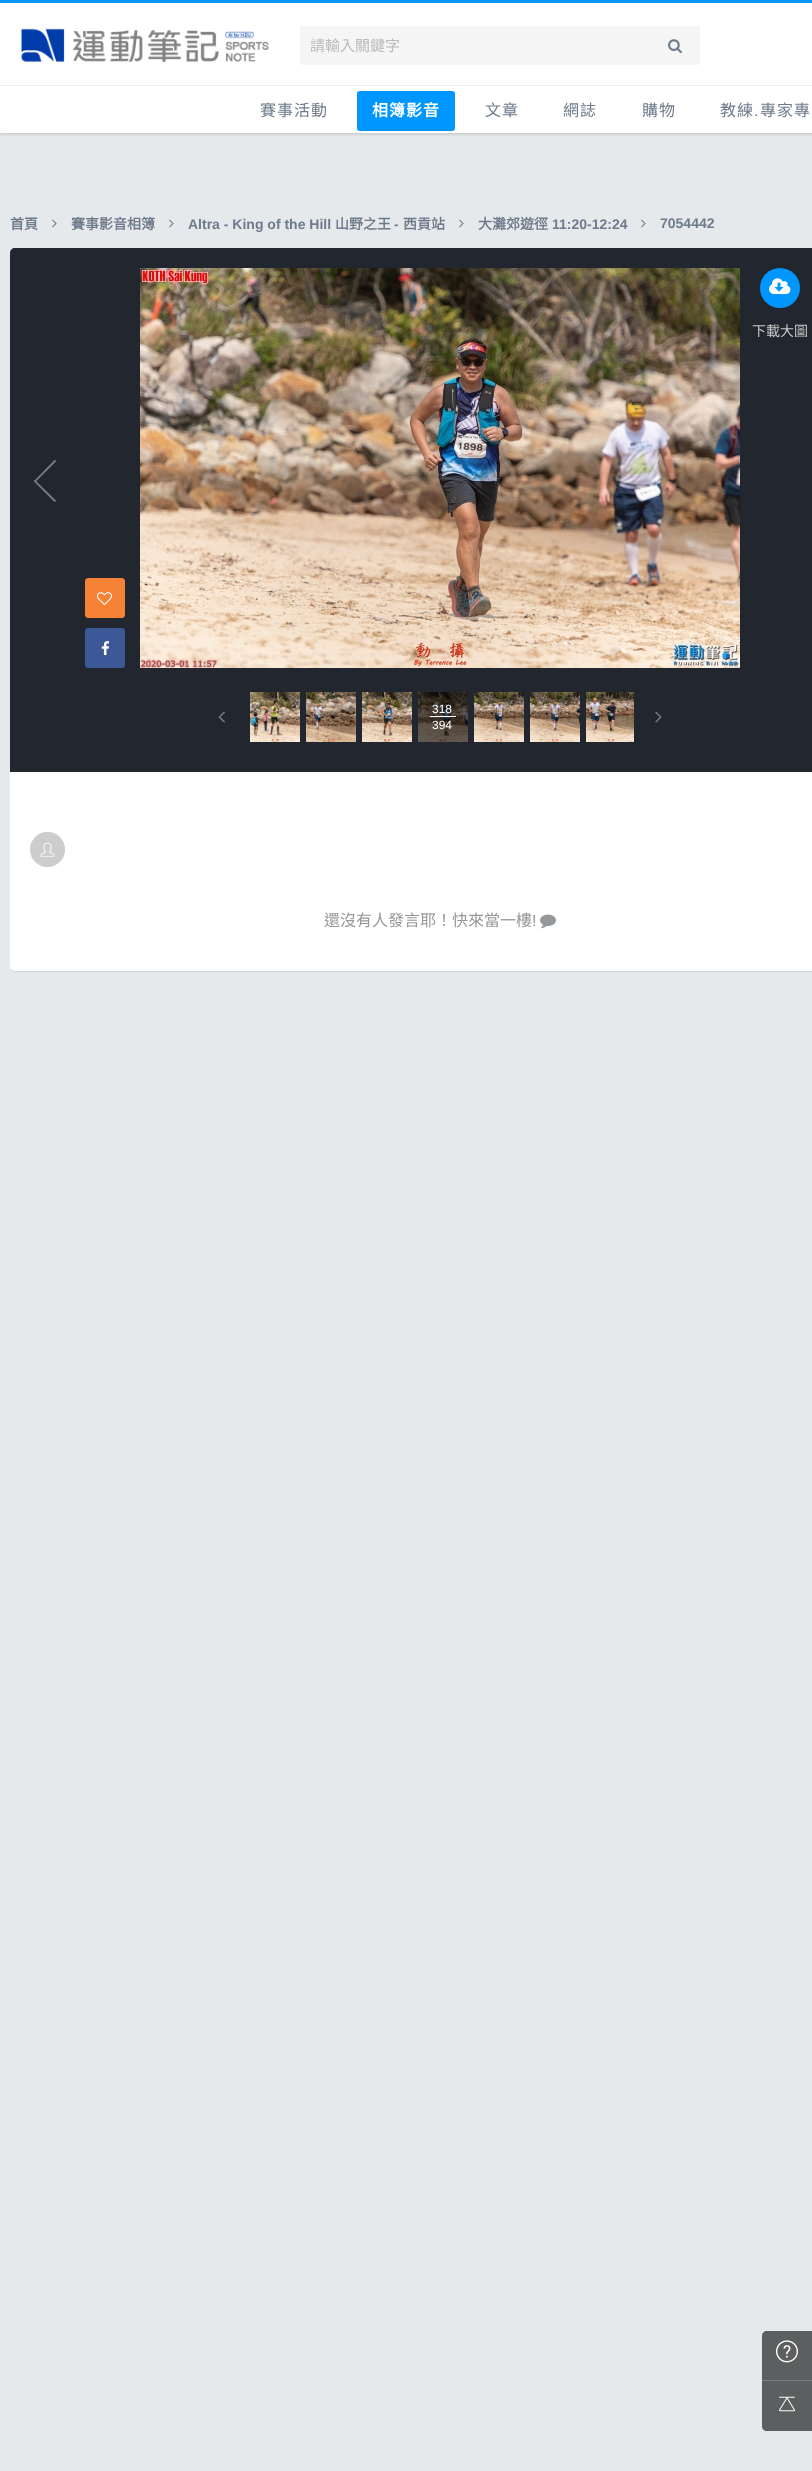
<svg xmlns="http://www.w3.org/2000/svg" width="812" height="2471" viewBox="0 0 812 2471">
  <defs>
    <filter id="blur1" x="-50%" y="-200%" width="200%" height="500%"><feGaussianBlur stdDeviation="1"/></filter>
    <filter id="blur2" x="-50%" y="-200%" width="200%" height="500%"><feGaussianBlur stdDeviation="0.5"/></filter>
  </defs>
  <rect width="100%" height="100%" fill="#e5e9ec"/>
  <rect x="0" y="0" width="812" height="3" fill="#0096ff"/>
  <rect x="0" y="5" width="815" height="130" fill="#000000" fill-opacity="0.1" filter="url(#blur1)"/>
  <rect x="0" y="3" width="812" height="130" fill="#ffffff"/>
  <rect x="0" y="85" width="812" height="1" fill="#eaecf1"/>
  <image x="20" y="28" width="249" height="35" href="img1.png"/>
  <rect x="300" y="26" width="400" height="39" rx="3" fill="#f5f5f5"/>
  <text x="310" y="51" font-family="Noto Sans CJK TC" font-size="15" fill="#bbbbbb">請輸入關鍵字</text>
  <image x="668" y="39" width="14" height="15" href="img2.png"/>
  <text x="260" y="116" font-family="Noto Sans CJK TC" font-size="16" letter-spacing="1" fill="#6f7b8a">賽事活動</text>
  <rect x="357" y="91" width="98" height="40" rx="3" fill="#0096ff"/>
  <text x="372" y="116" font-family="Noto Sans CJK TC" font-size="16" font-weight="bold" letter-spacing="1" fill="#ffffff">相簿影音</text>
  <text x="485" y="116" font-family="Noto Sans CJK TC" font-size="16" letter-spacing="1" fill="#6f7b8a">文章</text>
  <text x="563" y="116" font-family="Noto Sans CJK TC" font-size="16" letter-spacing="1" fill="#6f7b8a">網誌</text>
  <text x="642" y="116" font-family="Noto Sans CJK TC" font-size="16" letter-spacing="1" fill="#6f7b8a">購物</text>
  <text x="720" y="116" font-family="Noto Sans CJK TC" font-size="16" letter-spacing="1" fill="#6f7b8a">教練</text>
  <text x="754" y="116" font-family="Liberation Sans" font-size="16" letter-spacing="1" fill="#6f7b8a">.</text>
  <text x="760" y="116" font-family="Noto Sans CJK TC" font-size="16" letter-spacing="1" fill="#6f7b8a">專家專</text>
  <text x="10" y="229" font-family="Noto Sans CJK TC" font-size="14" font-weight="bold" fill="#6f7b8a">首頁</text>
  <image x="52" y="219" width="5" height="9" href="img3.png"/>
  <text x="71" y="229" font-family="Noto Sans CJK TC" font-size="14" font-weight="bold" fill="#6f7b8a">賽事影音相簿</text>
  <image x="169" y="219" width="5" height="9" href="img3.png"/>
  <text x="188" y="229" font-family="Liberation Sans" font-size="14" font-weight="bold" fill="#6f7b8a">Altra - King of the Hill</text>
  <text x="335" y="229" font-family="Noto Sans CJK TC" font-size="14" font-weight="bold" fill="#6f7b8a">山野之王</text>
  <text x="394" y="229" font-family="Liberation Sans" font-size="14" font-weight="bold" fill="#6f7b8a">-</text>
  <text x="403" y="229" font-family="Noto Sans CJK TC" font-size="14" font-weight="bold" fill="#6f7b8a">西貢站</text>
  <image x="459" y="219" width="5" height="9" href="img3.png"/>
  <text x="478" y="229" font-family="Noto Sans CJK TC" font-size="14" font-weight="bold" fill="#6f7b8a">大灘郊遊徑</text>
  <text x="552" y="229" font-family="Liberation Sans" font-size="14" font-weight="bold" fill="#6f7b8a">11:20-12:24</text>
  <image x="641" y="219" width="5" height="9" href="img3.png"/>
  <text x="660" y="228" font-family="Liberation Sans" font-size="14" font-weight="bold" fill="#6f7b8a">7054442</text>
  <rect x="11" y="249" width="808" height="723" rx="5" fill="#22262e" fill-opacity="0.1" filter="url(#blur2)"/>
  <rect x="10" y="248" width="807" height="723" rx="5" fill="#ffffff"/>
  <path d="M15 248H812C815 248 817 250 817 253V772H10V253C10 250 12 248 15 248Z" fill="#22262e"/>
  <image x="140" y="268" width="600" height="400" href="img4.png"/>
  <circle cx="780" cy="288" r="20" fill="#0096ff"/>
  <image x="769" y="278" width="22" height="16" href="img5.png"/>
  <text x="752" y="336" font-family="Noto Sans CJK TC" font-size="14" fill="#c8c8c8">下載大圖</text>
  <rect x="85.5" y="578.5" width="39" height="39" rx="2.5" fill="#f68236" stroke="#f68236"/>
  <image x="97" y="592" width="15" height="13" href="img6.png"/>
  <rect x="85.5" y="628.5" width="39" height="39" rx="2.5" fill="#3c5897" stroke="#3c5897"/>
  <image x="101" y="641" width="9" height="15" href="img7.png"/>
  <path d="M54 460.5L34.5 480.5L34 481.5C34.5 482 35 482 35.5 482L56 461.5C56 460.5 55 459.5 54 460.5Z" fill="#6f7b8a"/>
  <path d="M55.5 500L35.5 480.5L34.5 480C34 480.5 34 481 34 481.5L54.5 502C55.5 502 56.5 501 55.5 500Z" fill="#6f7b8a"/>
  <image x="218" y="711" width="7" height="12" href="img8.png"/>
  <image x="250" y="692" width="50" height="50" href="img9.png"/>
  <image x="306" y="692" width="50" height="50" href="img10.png"/>
  <image x="362" y="692" width="50" height="50" href="img11.png"/>
  <image x="418" y="692" width="50" height="50" href="img12.png"/>
  <text x="432" y="713" font-family="Liberation Sans" font-size="12" fill="#ffffff">318</text>
  <rect x="430" y="716" width="26" height="1" fill="#ffffff"/>
  <text x="432" y="729" font-family="Liberation Sans" font-size="12" fill="#ffffff">394</text>
  <image x="474" y="692" width="50" height="50" href="img13.png"/>
  <image x="530" y="692" width="50" height="50" href="img14.png"/>
  <image x="586" y="692" width="48" height="50" href="img15.png"/>
  <image x="655" y="711" width="7" height="12" href="img16.png"/>
  <circle cx="47.5" cy="849.5" r="17.5" fill="#e5e9ec"/>
  <image x="30" y="832" width="35" height="35" href="img17.png"/>
  <text x="324" y="926" font-family="Noto Sans CJK TC" font-size="16" fill="#95989a">還沒有人發言耶！快來當一樓</text>
  <text x="532" y="926" font-family="Liberation Sans" font-size="16" fill="#95989a">!</text>
  <image x="540" y="914" width="16" height="15" href="img18.png"/>
  <path d="M767 2331H812V2431H767C764 2431 762 2429 762 2426V2336C762 2333 764 2331 767 2331Z" fill="#5d5e5f"/>
  <rect x="762" y="2380" width="50" height="1" fill="#7d7e7f"/>
  <image x="776" y="2340" width="22" height="23" href="img19.png"/>
  <image x="779" y="2396" width="16" height="16" href="img20.png"/>
</svg>
